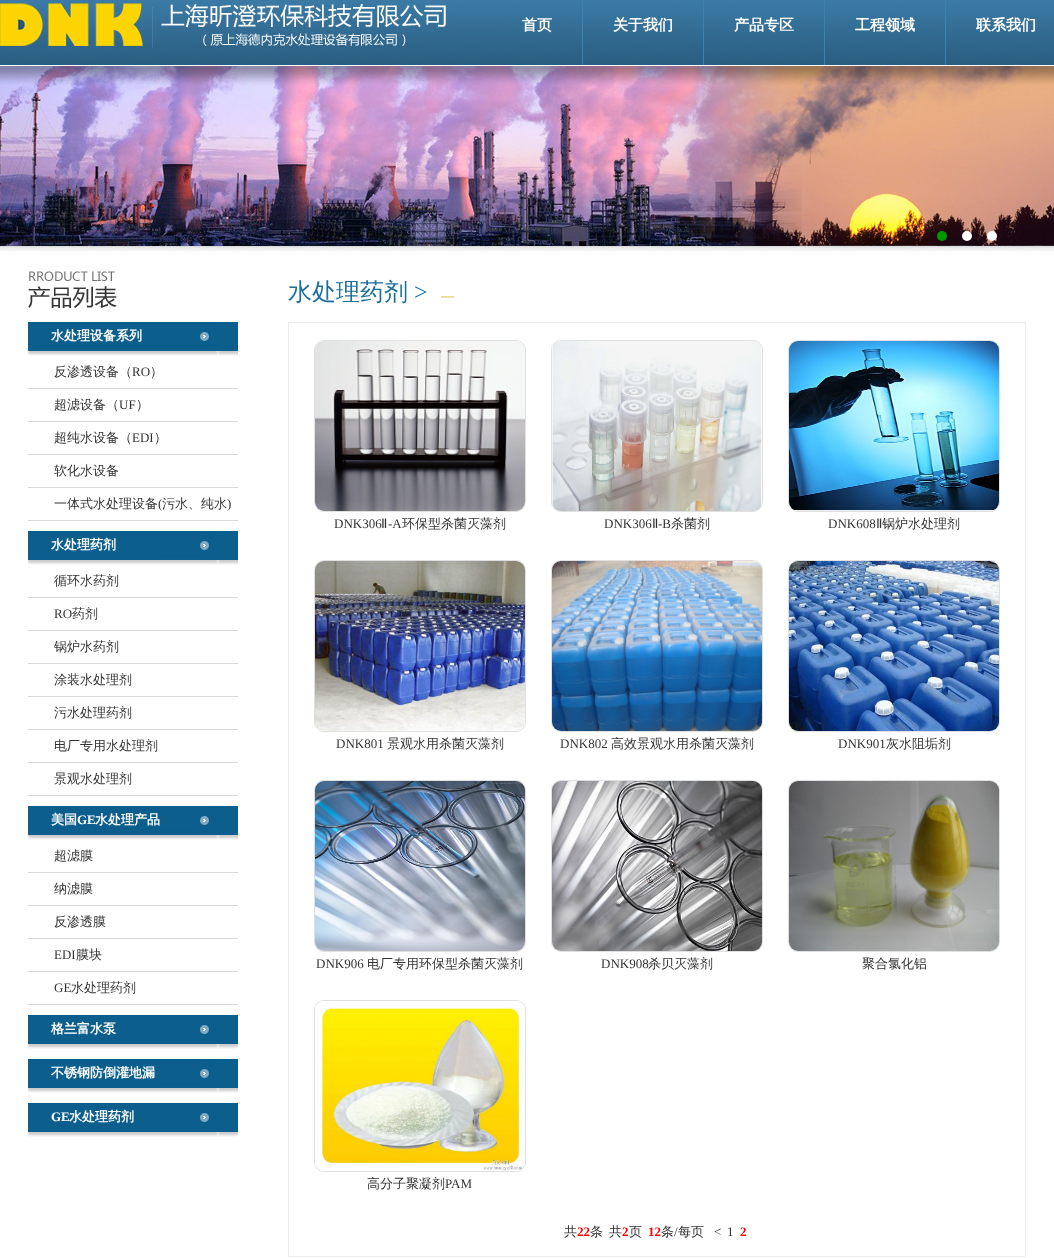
<svg xmlns="http://www.w3.org/2000/svg" width="1054" height="1258" viewBox="0 0 1054 1258">
  <rect width="100%" height="100%" fill="#ffffff"/>
  <image x="0" y="0" width="1054" height="65" href="img1.png"/>
  <image x="0" y="3" width="446" height="45" href="img2.png"/>
  <rect x="582" y="0" width="1" height="65" fill="#3c82b1"/>
  <text x="522" y="30" font-family="WenQuanYi Zen Hei" font-size="15" font-weight="bold" fill="#ffffff">首页</text>
  <rect x="703" y="0" width="1" height="65" fill="#3c82b1"/>
  <text x="613" y="30" font-family="WenQuanYi Zen Hei" font-size="15" font-weight="bold" fill="#ffffff">关于我们</text>
  <rect x="824" y="0" width="1" height="65" fill="#3c82b1"/>
  <text x="734" y="30" font-family="WenQuanYi Zen Hei" font-size="15" font-weight="bold" fill="#ffffff">产品专区</text>
  <rect x="945" y="0" width="1" height="65" fill="#3c82b1"/>
  <text x="855" y="30" font-family="WenQuanYi Zen Hei" font-size="15" font-weight="bold" fill="#ffffff">工程领域</text>
  <text x="976" y="30" font-family="WenQuanYi Zen Hei" font-size="15" font-weight="bold" fill="#ffffff">联系我们</text>
  <image x="0" y="66" width="1054" height="188" href="img3.png"/>
  <circle cx="942" cy="236" r="5" fill="#009900"/>
  <circle cx="967" cy="236" r="5" fill="#ffffff"/>
  <circle cx="992" cy="236" r="5" fill="#ffffff"/>
  <image x="28" y="271" width="89" height="37" href="img4.png"/>
  <image x="28" y="322" width="210" height="34" href="img5.png"/>
  <text x="51" y="340" font-family="WenQuanYi Zen Hei" font-size="13" font-weight="bold" fill="#ffffff">水处理设备系列</text>
  <rect x="28" y="388" width="210" height="1" fill="#d8d8d8"/>
  <text x="54" y="376" font-family="WenQuanYi Zen Hei" font-size="13" font-weight="500" fill="#333333">反渗透设备（</text>
  <text x="132" y="376" font-family="Liberation Serif" font-size="13" fill="#333333">RO</text>
  <text x="150" y="376" font-family="WenQuanYi Zen Hei" font-size="13" font-weight="500" fill="#333333">）</text>
  <rect x="28" y="421" width="210" height="1" fill="#d8d8d8"/>
  <text x="54" y="409" font-family="WenQuanYi Zen Hei" font-size="13" font-weight="500" fill="#333333">超滤设备（</text>
  <text x="119" y="409" font-family="Liberation Serif" font-size="13" fill="#333333">UF</text>
  <text x="136" y="409" font-family="WenQuanYi Zen Hei" font-size="13" font-weight="500" fill="#333333">）</text>
  <rect x="28" y="454" width="210" height="1" fill="#d8d8d8"/>
  <text x="54" y="442" font-family="WenQuanYi Zen Hei" font-size="13" font-weight="500" fill="#333333">超纯水设备（</text>
  <text x="132" y="442" font-family="Liberation Serif" font-size="13" fill="#333333">EDI</text>
  <text x="154" y="442" font-family="WenQuanYi Zen Hei" font-size="13" font-weight="500" fill="#333333">）</text>
  <rect x="28" y="487" width="210" height="1" fill="#d8d8d8"/>
  <text x="54" y="475" font-family="WenQuanYi Zen Hei" font-size="13" font-weight="500" fill="#333333">软化水设备</text>
  <rect x="28" y="520" width="210" height="1" fill="#d8d8d8"/>
  <text x="54" y="508" font-family="WenQuanYi Zen Hei" font-size="13" font-weight="500" fill="#333333">一体式水处理设备</text>
  <text x="158" y="508" font-family="Liberation Serif" font-size="13" fill="#333333">(</text>
  <text x="162" y="508" font-family="WenQuanYi Zen Hei" font-size="13" font-weight="500" fill="#333333">污水、纯水</text>
  <text x="227" y="508" font-family="Liberation Serif" font-size="13" fill="#333333">)</text>
  <image x="28" y="531" width="210" height="34" href="img5.png"/>
  <text x="51" y="549" font-family="WenQuanYi Zen Hei" font-size="13" font-weight="bold" fill="#ffffff">水处理药剂</text>
  <rect x="28" y="597" width="210" height="1" fill="#d8d8d8"/>
  <text x="54" y="585" font-family="WenQuanYi Zen Hei" font-size="13" font-weight="500" fill="#333333">循环水药剂</text>
  <rect x="28" y="630" width="210" height="1" fill="#d8d8d8"/>
  <text x="54" y="618" font-family="Liberation Serif" font-size="13" fill="#333333">RO</text>
  <text x="72" y="618" font-family="WenQuanYi Zen Hei" font-size="13" font-weight="500" fill="#333333">药剂</text>
  <rect x="28" y="663" width="210" height="1" fill="#d8d8d8"/>
  <text x="54" y="651" font-family="WenQuanYi Zen Hei" font-size="13" font-weight="500" fill="#333333">锅炉水药剂</text>
  <rect x="28" y="696" width="210" height="1" fill="#d8d8d8"/>
  <text x="54" y="684" font-family="WenQuanYi Zen Hei" font-size="13" font-weight="500" fill="#333333">涂装水处理剂</text>
  <rect x="28" y="729" width="210" height="1" fill="#d8d8d8"/>
  <text x="54" y="717" font-family="WenQuanYi Zen Hei" font-size="13" font-weight="500" fill="#333333">污水处理药剂</text>
  <rect x="28" y="762" width="210" height="1" fill="#d8d8d8"/>
  <text x="54" y="750" font-family="WenQuanYi Zen Hei" font-size="13" font-weight="500" fill="#333333">电厂专用水处理剂</text>
  <rect x="28" y="795" width="210" height="1" fill="#d8d8d8"/>
  <text x="54" y="783" font-family="WenQuanYi Zen Hei" font-size="13" font-weight="500" fill="#333333">景观水处理剂</text>
  <image x="28" y="806" width="210" height="34" href="img5.png"/>
  <text x="51" y="824" font-family="WenQuanYi Zen Hei" font-size="13" font-weight="bold" fill="#ffffff">美国</text>
  <text x="77" y="824" font-family="Liberation Serif" font-size="13" font-weight="bold" fill="#ffffff">GE</text>
  <text x="95" y="824" font-family="WenQuanYi Zen Hei" font-size="13" font-weight="bold" fill="#ffffff">水处理产品</text>
  <rect x="28" y="872" width="210" height="1" fill="#d8d8d8"/>
  <text x="54" y="860" font-family="WenQuanYi Zen Hei" font-size="13" font-weight="500" fill="#333333">超滤膜</text>
  <rect x="28" y="905" width="210" height="1" fill="#d8d8d8"/>
  <text x="54" y="893" font-family="WenQuanYi Zen Hei" font-size="13" font-weight="500" fill="#333333">纳滤膜</text>
  <rect x="28" y="938" width="210" height="1" fill="#d8d8d8"/>
  <text x="54" y="926" font-family="WenQuanYi Zen Hei" font-size="13" font-weight="500" fill="#333333">反渗透膜</text>
  <rect x="28" y="971" width="210" height="1" fill="#d8d8d8"/>
  <text x="54" y="959" font-family="Liberation Serif" font-size="13" fill="#333333">EDI</text>
  <text x="76" y="959" font-family="WenQuanYi Zen Hei" font-size="13" font-weight="500" fill="#333333">膜块</text>
  <rect x="28" y="1004" width="210" height="1" fill="#d8d8d8"/>
  <text x="54" y="992" font-family="Liberation Serif" font-size="13" fill="#333333">GE</text>
  <text x="71" y="992" font-family="WenQuanYi Zen Hei" font-size="13" font-weight="500" fill="#333333">水处理药剂</text>
  <image x="28" y="1015" width="210" height="34" href="img5.png"/>
  <text x="51" y="1033" font-family="WenQuanYi Zen Hei" font-size="13" font-weight="bold" fill="#ffffff">格兰富水泵</text>
  <image x="28" y="1059" width="210" height="34" href="img5.png"/>
  <text x="51" y="1077" font-family="WenQuanYi Zen Hei" font-size="13" font-weight="bold" fill="#ffffff">不锈钢防倒灌地漏</text>
  <image x="28" y="1103" width="210" height="34" href="img5.png"/>
  <text x="51" y="1121" font-family="Liberation Serif" font-size="13" font-weight="bold" fill="#ffffff">GE</text>
  <text x="69" y="1121" font-family="WenQuanYi Zen Hei" font-size="13" font-weight="bold" fill="#ffffff">水处理药剂</text>
  <text x="288" y="300" font-family="WenQuanYi Zen Hei" font-size="24" font-weight="500" fill="#1a6f9b">水处理药剂</text>
  <text x="414" y="300" font-family="Liberation Serif" font-size="24" fill="#1a6f9b">&gt;</text>
  <text x="441" y="300" font-family="Liberation Serif" font-size="13" fill="#c69f06">—</text>
  <rect x="288.5" y="322.5" width="737" height="934" fill="none" stroke="#ececec"/>
  <rect x="314.5" y="340.5" width="211" height="171" rx="9.5" fill="none" stroke="#e0e0e0"/>
  <image x="315" y="341" width="210" height="170" href="img6.png"/>
  <text x="334" y="528" font-family="Liberation Serif" font-size="13" fill="#333333">DNK306</text>
  <text x="381" y="528" font-family="DejaVu Sans" font-size="13" fill="#333333">Ⅱ</text>
  <text x="388" y="528" font-family="Liberation Serif" font-size="13" fill="#333333">-A</text>
  <text x="402" y="528" font-family="WenQuanYi Zen Hei" font-size="13" font-weight="500" fill="#333333">环保型杀菌灭藻剂</text>
  <rect x="551.5" y="340.5" width="211" height="171" rx="9.5" fill="none" stroke="#e0e0e0"/>
  <image x="552" y="341" width="210" height="170" href="img7.png"/>
  <text x="604" y="528" font-family="Liberation Serif" font-size="13" fill="#333333">DNK306</text>
  <text x="652" y="528" font-family="DejaVu Sans" font-size="13" fill="#333333">Ⅱ</text>
  <text x="658" y="528" font-family="Liberation Serif" font-size="13" fill="#333333">-B</text>
  <text x="671" y="528" font-family="WenQuanYi Zen Hei" font-size="13" font-weight="500" fill="#333333">杀菌剂</text>
  <rect x="788.5" y="340.5" width="211" height="171" rx="9.5" fill="none" stroke="#e0e0e0"/>
  <image x="789" y="341" width="210" height="170" href="img8.png"/>
  <text x="828" y="528" font-family="Liberation Serif" font-size="13" fill="#333333">DNK608</text>
  <text x="876" y="528" font-family="DejaVu Sans" font-size="13" fill="#333333">Ⅱ</text>
  <text x="882" y="528" font-family="WenQuanYi Zen Hei" font-size="13" font-weight="500" fill="#333333">锅炉水处理剂</text>
  <rect x="314.5" y="560.5" width="211" height="171" rx="9.5" fill="none" stroke="#e0e0e0"/>
  <image x="315" y="561" width="210" height="170" href="img9.png"/>
  <text x="336" y="748" font-family="Liberation Serif" font-size="13" fill="#333333">DNK801</text>
  <text x="387" y="748" font-family="WenQuanYi Zen Hei" font-size="13" font-weight="500" fill="#333333">景观水用杀菌灭藻剂</text>
  <rect x="551.5" y="560.5" width="211" height="171" rx="9.5" fill="none" stroke="#e0e0e0"/>
  <image x="552" y="561" width="210" height="170" href="img10.png"/>
  <text x="560" y="748" font-family="Liberation Serif" font-size="13" fill="#333333">DNK802</text>
  <text x="611" y="748" font-family="WenQuanYi Zen Hei" font-size="13" font-weight="500" fill="#333333">高效景观水用杀菌灭藻剂</text>
  <rect x="788.5" y="560.5" width="211" height="171" rx="9.5" fill="none" stroke="#e0e0e0"/>
  <image x="789" y="561" width="210" height="170" href="img11.png"/>
  <text x="838" y="748" font-family="Liberation Serif" font-size="13" fill="#333333">DNK901</text>
  <text x="886" y="748" font-family="WenQuanYi Zen Hei" font-size="13" font-weight="500" fill="#333333">灰水阻垢剂</text>
  <rect x="314.5" y="780.5" width="211" height="171" rx="9.5" fill="none" stroke="#e0e0e0"/>
  <image x="315" y="781" width="210" height="170" href="img12.png"/>
  <text x="316" y="968" font-family="Liberation Serif" font-size="13" fill="#333333">DNK906</text>
  <text x="367" y="968" font-family="WenQuanYi Zen Hei" font-size="13" font-weight="500" fill="#333333">电厂专用环保型杀菌灭藻剂</text>
  <rect x="551.5" y="780.5" width="211" height="171" rx="9.5" fill="none" stroke="#e0e0e0"/>
  <image x="552" y="781" width="210" height="170" href="img13.png"/>
  <text x="601" y="968" font-family="Liberation Serif" font-size="13" fill="#333333">DNK908</text>
  <text x="648" y="968" font-family="WenQuanYi Zen Hei" font-size="13" font-weight="500" fill="#333333">杀贝灭藻剂</text>
  <rect x="788.5" y="780.5" width="211" height="171" rx="9.5" fill="none" stroke="#e0e0e0"/>
  <image x="789" y="781" width="210" height="170" href="img14.png"/>
  <text x="862" y="968" font-family="WenQuanYi Zen Hei" font-size="13" font-weight="500" fill="#333333">聚合氯化铝</text>
  <rect x="314.5" y="1000.5" width="211" height="171" rx="9.5" fill="none" stroke="#e0e0e0"/>
  <image x="315" y="1001" width="210" height="170" href="img15.png"/>
  <text x="367" y="1188" font-family="WenQuanYi Zen Hei" font-size="13" font-weight="500" fill="#333333">高分子聚凝剂</text>
  <text x="445" y="1188" font-family="Liberation Serif" font-size="13" fill="#333333">PAM</text>
  <text x="564" y="1236" font-family="WenQuanYi Zen Hei" font-size="13" font-weight="500" fill="#333333">共</text>
  <text x="577" y="1236" font-family="Liberation Serif" font-size="13" font-weight="bold" fill="#ff0000">22</text>
  <text x="590" y="1236" font-family="WenQuanYi Zen Hei" font-size="13" font-weight="500" fill="#333333">条</text>
  <text x="609" y="1236" font-family="WenQuanYi Zen Hei" font-size="13" font-weight="500" fill="#333333">共</text>
  <text x="622" y="1236" font-family="Liberation Serif" font-size="13" font-weight="bold" fill="#ff0000">2</text>
  <text x="629" y="1236" font-family="WenQuanYi Zen Hei" font-size="13" font-weight="500" fill="#333333">页</text>
  <text x="648" y="1236" font-family="Liberation Serif" font-size="13" font-weight="bold" fill="#ff0000">12</text>
  <text x="661" y="1236" font-family="WenQuanYi Zen Hei" font-size="13" font-weight="500" fill="#333333">条 每页</text>
  <text x="674" y="1236" font-family="Liberation Serif" font-size="13" fill="#333333">/</text>
  <text x="714" y="1236" font-family="Liberation Serif" font-size="13" fill="#333333">&lt;</text>
  <text x="727" y="1236" font-family="Liberation Serif" font-size="13" fill="#333333">1</text>
  <text x="740" y="1236" font-family="Liberation Serif" font-size="13" font-weight="bold" fill="#ff0000">2</text>
</svg>
